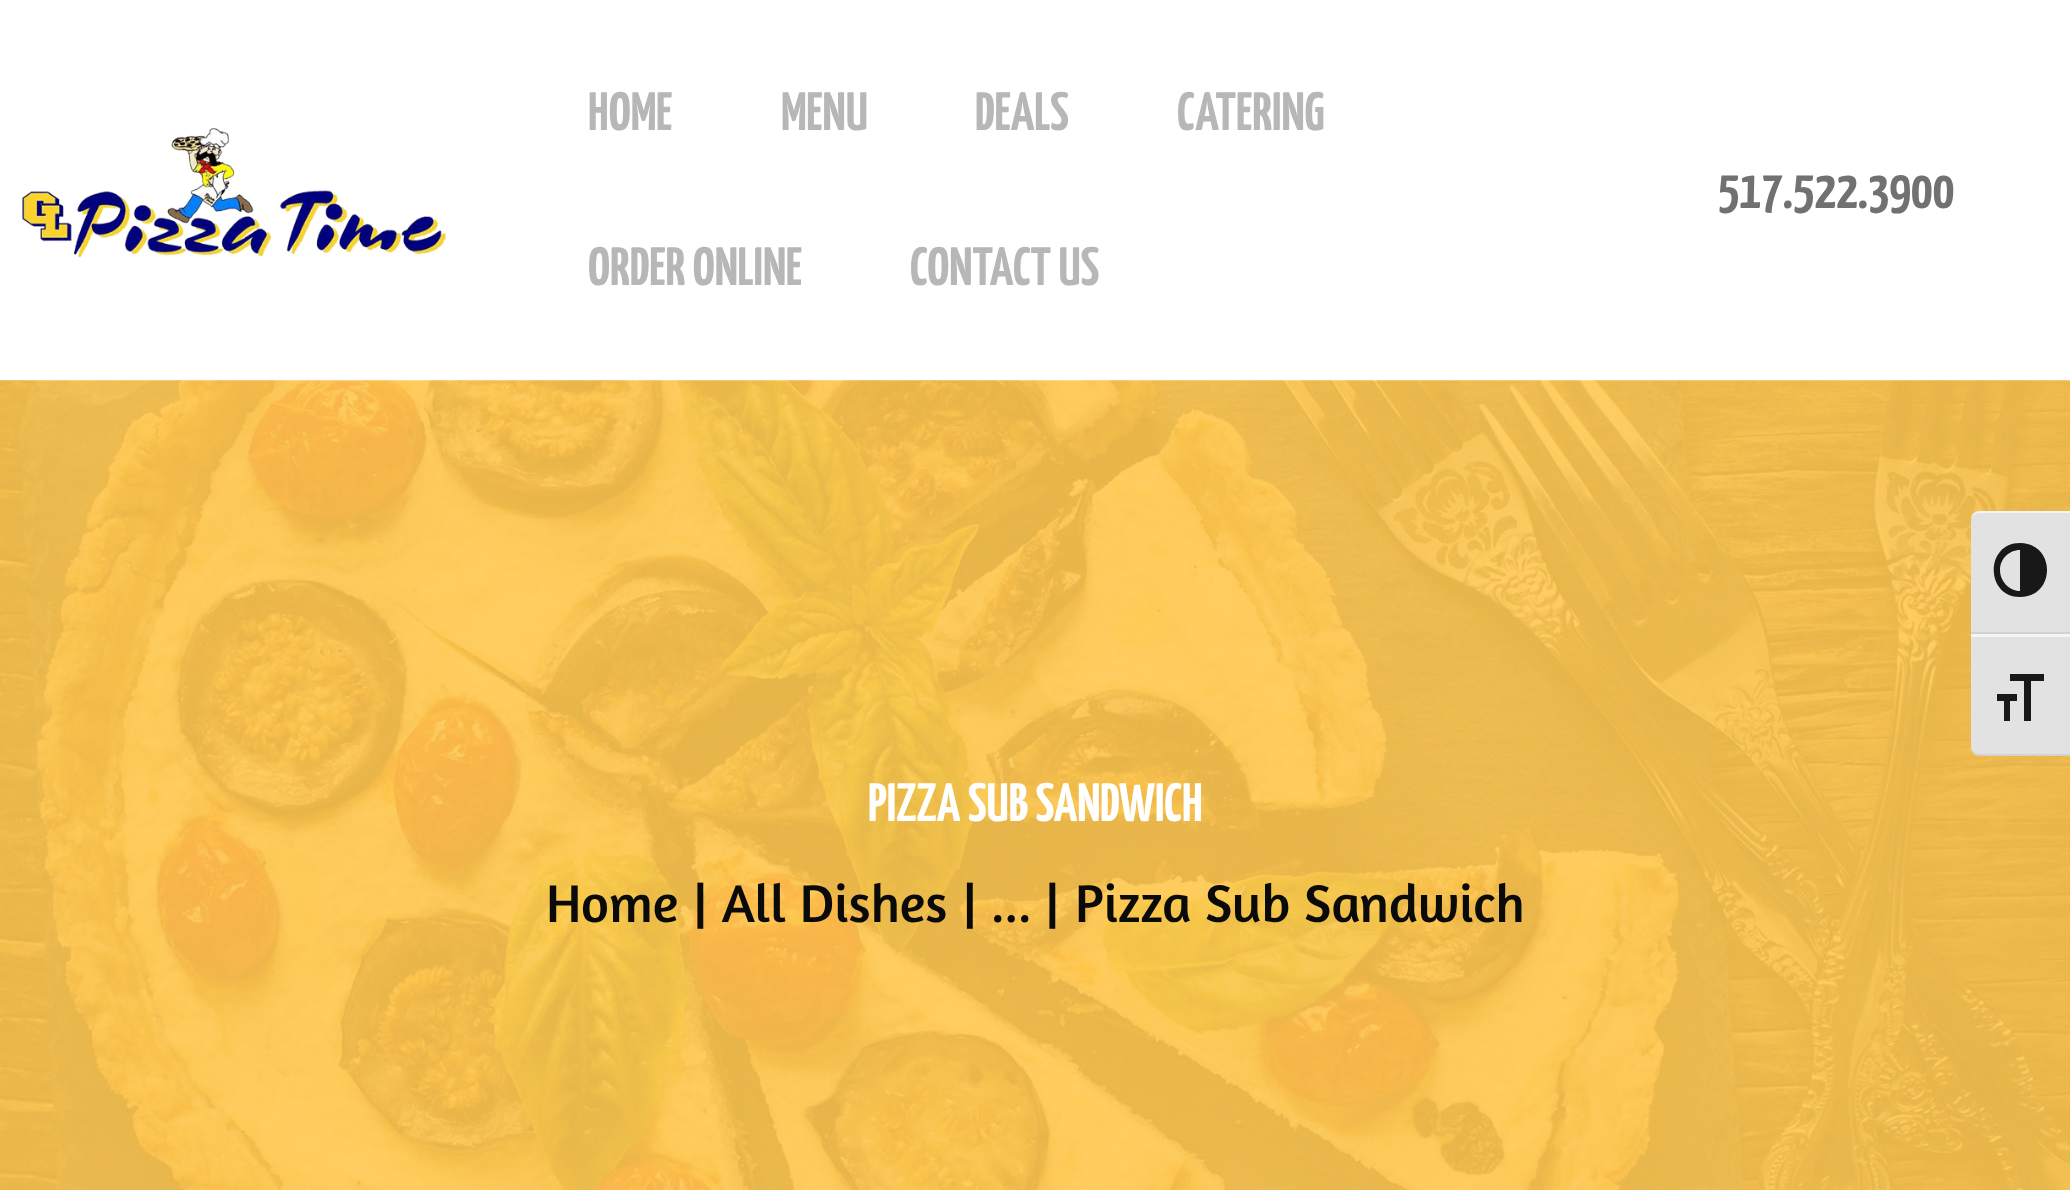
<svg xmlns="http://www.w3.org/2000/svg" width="2070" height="1190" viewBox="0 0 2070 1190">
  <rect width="100%" height="100%" fill="#ffffff"/>
  <image x="22" y="128" width="424" height="130" href="img1.png"/>
  <text x="588" y="130" font-family="Yanone Kaffeesatz" font-size="54" font-weight="bold" fill="#b7b7b7">HOME</text>
  <text x="781" y="130" font-family="Yanone Kaffeesatz" font-size="54" font-weight="bold" fill="#b7b7b7">MENU</text>
  <text x="975" y="130" font-family="Yanone Kaffeesatz" font-size="54" font-weight="bold" fill="#b7b7b7">DEALS</text>
  <text x="1177" y="130" font-family="Yanone Kaffeesatz" font-size="54" font-weight="bold" fill="#b7b7b7">CATERING</text>
  <text x="588" y="285" font-family="Yanone Kaffeesatz" font-size="54" font-weight="bold" fill="#b7b7b7">ORDER ONLINE</text>
  <text x="910" y="285" font-family="Yanone Kaffeesatz" font-size="54" font-weight="bold" fill="#b7b7b7">CONTACT US</text>
  <text x="1718" y="208" font-family="Yanone Kaffeesatz" font-size="54" font-weight="bold" fill="#717171">517.522.3900</text>
  <image x="0" y="380" width="2070" height="810" href="img2.png"/>
  <text x="868" y="821" font-family="Yanone Kaffeesatz" font-size="54" font-weight="bold" fill="#ffffff">PIZZA SUB SANDWICH</text>
  <text x="546" y="922" font-family="Amaranth" font-size="54" fill="#0a0a0a">Home |</text>
  <text x="722" y="922" font-family="Amaranth" font-size="54" fill="#0a0a0a">All Dishes |</text>
  <text x="991" y="922" font-family="Amaranth" font-size="50" fill="#0a0a0a">...</text>
  <text x="1044" y="922" font-family="Amaranth" font-size="54" fill="#0a0a0a">|</text>
  <text x="1075" y="922" font-family="Amaranth" font-size="54" fill="#0a0a0a">Pizza Sub Sandwich</text>
  <path d="M1980 511H2070V635H1971V520C1971 515 1975 511 1980 511Z" fill="#e2e2e2"/>
  <path d="M1980 511H2070V513H1980C1975 513 1971 516 1971 520C1971 515 1975 511 1980 511Z" fill="#f5f5f5"/>
  <rect x="1971" y="632" width="99" height="2" fill="#d2d2d2"/>
  <path d="M2020 543C1985 543 1985 597 2020 597C2056 597 2056 543 2020 543ZM2000 570C2000 559 2009 550 2020 550V591C2009 591 2000 581 2000 570Z" fill="#181818"/>
  <path d="M1971 635H2070V756H1980C1975 756 1971 752 1971 747Z" fill="#e2e2e2"/>
  <rect x="1971" y="634" width="99" height="3" fill="#f5f5f5"/>
  <path d="M2070 756V754H1980C1975 754 1971 751 1971 747C1971 752 1975 756 1980 756Z" fill="#d2d2d2"/>
  <path d="M1997 694H2017V701H2010V721H2004V701H1997ZM2044 681H2031V721H2024V681H2010V674H2044Z" fill="#181818"/>
</svg>
